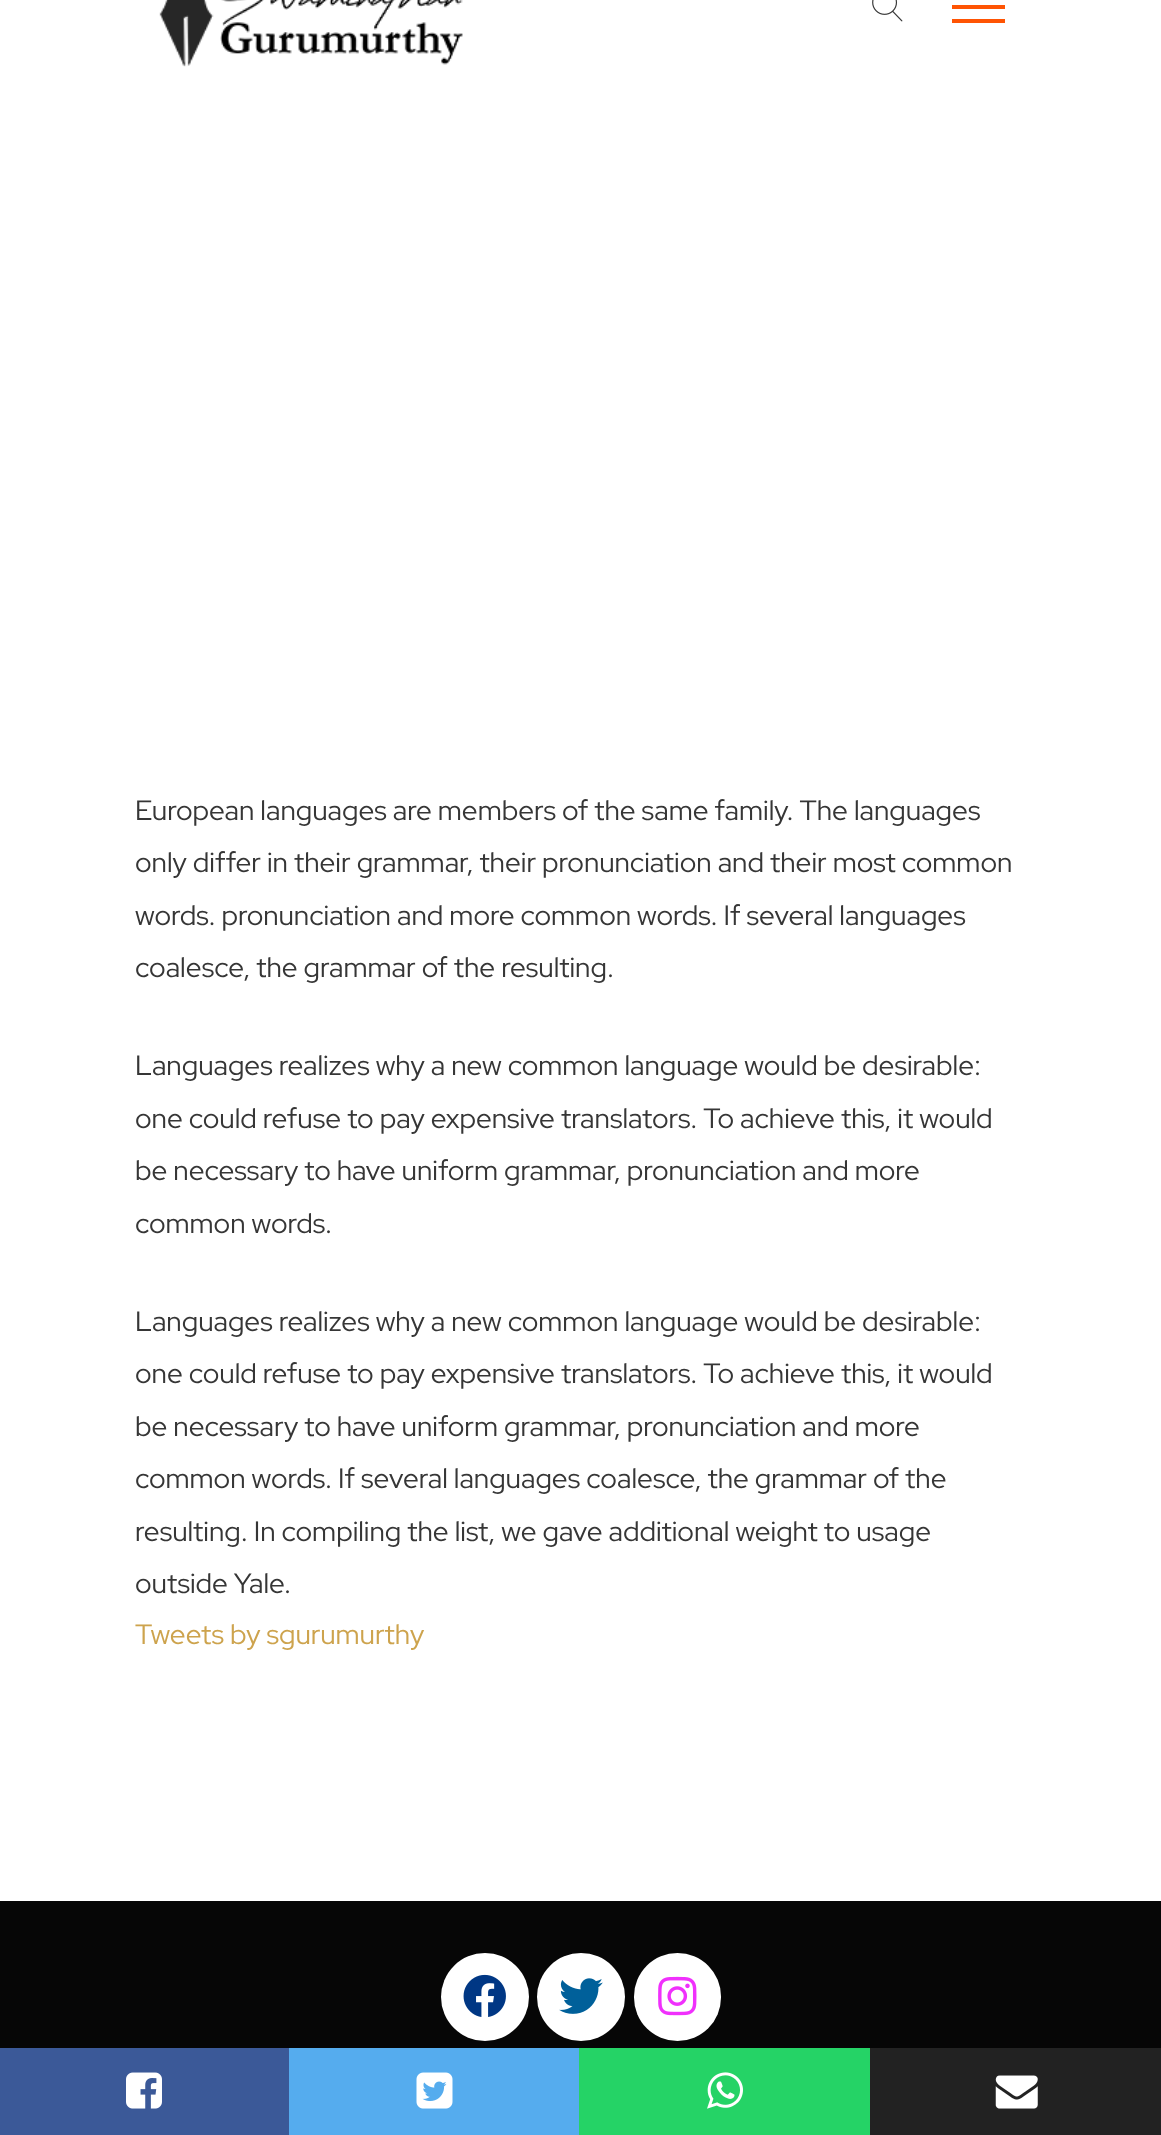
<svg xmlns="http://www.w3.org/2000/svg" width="1161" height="2135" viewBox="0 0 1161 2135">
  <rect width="100%" height="100%" fill="#ffffff"/>
  <image x="159" y="0" width="304" height="67" href="img1.png"/>
  <image x="872" y="0" width="31" height="22" href="img2.png"/>
  <rect x="952" y="5" width="53" height="4" fill="#ff5403"/>
  <rect x="952" y="19" width="53" height="4" fill="#ff5403"/>
  <text x="135" y="820" font-family="Red Hat Display" font-size="28" fill="#363636">European languages are members of the same family. The languages</text>
  <text x="135" y="872" font-family="Red Hat Display" font-size="28" fill="#363636">only differ in their grammar, their pronunciation and their most common</text>
  <text x="135" y="925" font-family="Red Hat Display" font-size="28" fill="#363636">words. pronunciation and more common words. If several languages</text>
  <text x="135" y="977" font-family="Red Hat Display" font-size="28" fill="#363636">coalesce, the grammar of the resulting.</text>
  <text x="135" y="1075" font-family="Red Hat Display" font-size="28" fill="#363636">Languages realizes why a new common language would be desirable:</text>
  <text x="135" y="1128" font-family="Red Hat Display" font-size="28" fill="#363636">one could refuse to pay expensive translators. To achieve this, it would</text>
  <text x="135" y="1180" font-family="Red Hat Display" font-size="28" fill="#363636">be necessary to have uniform grammar, pronunciation and more</text>
  <text x="135" y="1233" font-family="Red Hat Display" font-size="28" fill="#363636">common words.</text>
  <text x="135" y="1331" font-family="Red Hat Display" font-size="28" fill="#363636">Languages realizes why a new common language would be desirable:</text>
  <text x="135" y="1383" font-family="Red Hat Display" font-size="28" fill="#363636">one could refuse to pay expensive translators. To achieve this, it would</text>
  <text x="135" y="1436" font-family="Red Hat Display" font-size="28" fill="#363636">be necessary to have uniform grammar, pronunciation and more</text>
  <text x="135" y="1488" font-family="Red Hat Display" font-size="28" fill="#363636">common words. If several languages coalesce, the grammar of the</text>
  <text x="135" y="1541" font-family="Red Hat Display" font-size="28" fill="#363636">resulting. In compiling the list, we gave additional weight to usage</text>
  <text x="135" y="1593" font-family="Red Hat Display" font-size="28" fill="#363636">outside Yale.</text>
  <text x="135" y="1644" font-family="Red Hat Display" font-size="28" fill="#cda34d">Tweets by sgurumurthy</text>
  <rect x="0" y="1901" width="1161" height="147" fill="#060606"/>
  <circle cx="485" cy="1997" r="44" fill="#ffffff"/>
  <image x="463" y="1974" width="43" height="43" href="img3.png"/>
  <circle cx="581" cy="1997" r="44" fill="#ffffff"/>
  <image x="559" y="1978" width="44" height="36" href="img4.png"/>
  <rect x="634" y="1953" width="87" height="88" rx="43.5" fill="#ffffff"/>
  <image x="658" y="1976" width="39" height="40" href="img5.png"/>
  <rect x="0" y="2048" width="289" height="87" fill="#3b5998"/>
  <image x="126" y="2072" width="36" height="37" href="img6.png"/>
  <rect x="289" y="2048" width="290" height="87" fill="#55acee"/>
  <image x="416" y="2072" width="37" height="37" href="img7.png"/>
  <rect x="579" y="2048" width="291" height="87" fill="#25d366"/>
  <image x="707" y="2072" width="36" height="37" href="img8.png"/>
  <rect x="870" y="2048" width="291" height="87" fill="#222222"/>
  <image x="995" y="2075" width="43" height="34" href="img9.png"/>
</svg>
